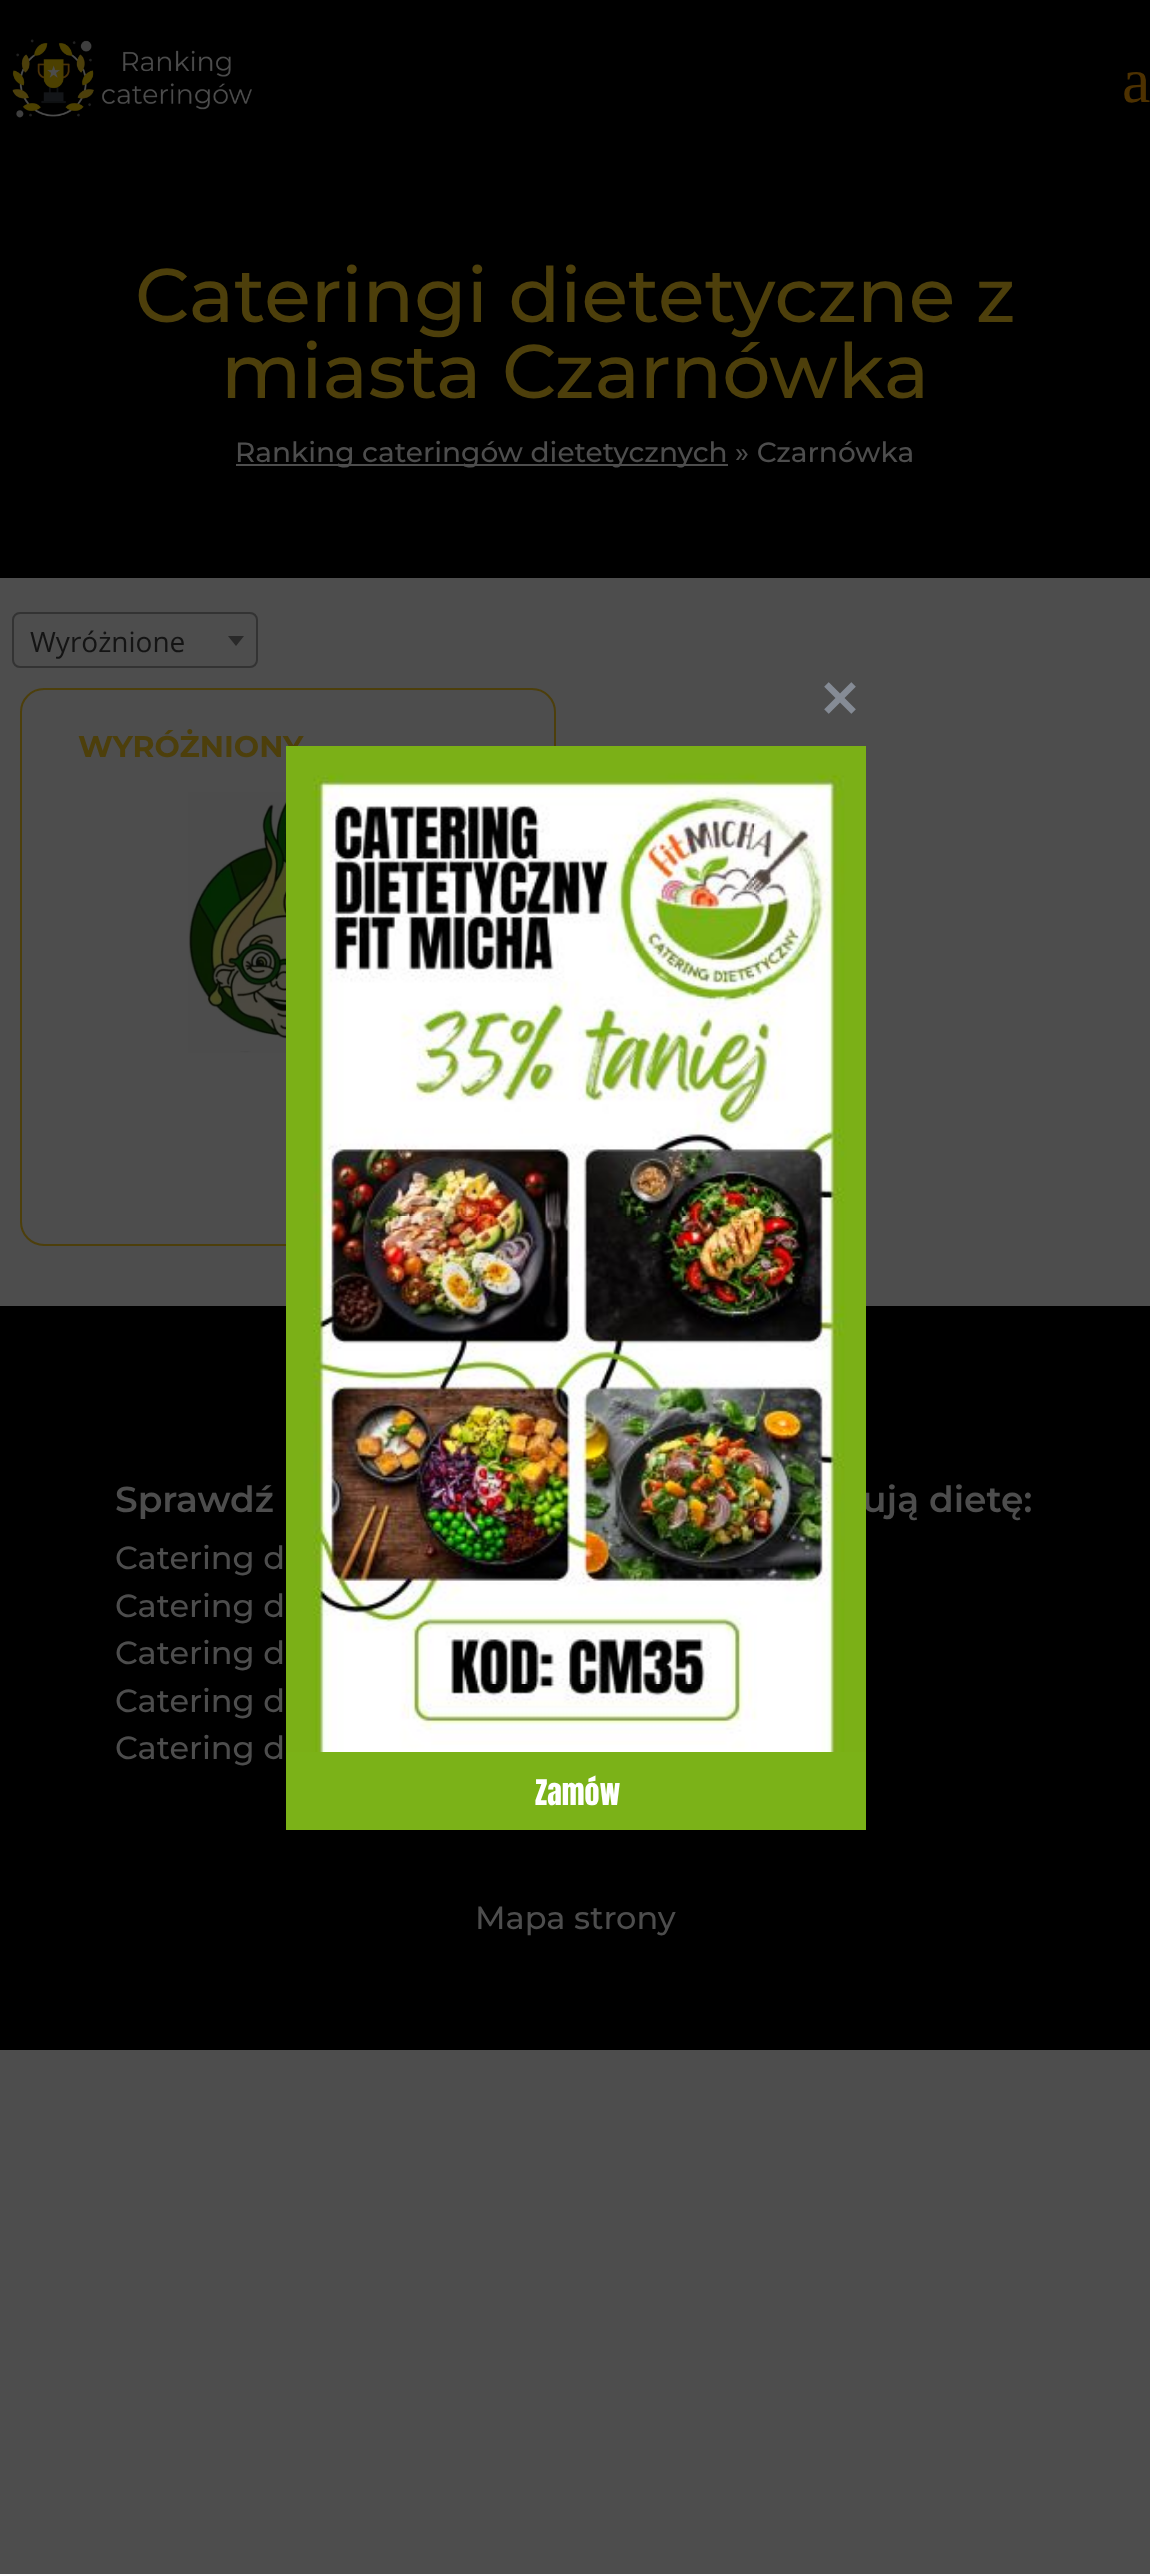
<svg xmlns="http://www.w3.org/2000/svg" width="1150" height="2574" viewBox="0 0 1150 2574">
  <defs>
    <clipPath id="clip1"><rect x="286" y="746" width="580" height="1084"/></clipPath>
  </defs>
  <rect width="100%" height="100%" fill="#4d4d4d"/>
  <rect x="0" y="0" width="1150" height="578" fill="#000000"/>
  <image x="12" y="39" width="240" height="79" href="img1.png"/>
  <text x="1122" y="102" font-family="Liberation Serif" font-size="64" fill="#4d3100">a</text>
  <text x="135" y="322" font-family="Montserrat" font-size="76" font-weight="100" fill="#4d3f0b">Cateringi dietetyczne z</text>
  <text x="221" y="398" font-family="Montserrat" font-size="76" font-weight="100" fill="#4d3f0b">miasta Czarnówka</text>
  <rect x="236" y="464" width="492" height="2" fill="#4d4d4d"/>
  <text x="235" y="462" font-family="Montserrat" font-size="28" font-weight="100" fill="#4d4d4d">Ranking cateringów dietetycznych » Czarnówka</text>
  <rect x="13" y="613" width="244" height="54" rx="7" fill="none" stroke="#333333" stroke-width="2"/>
  <text x="30" y="652" font-family="Open Sans" font-size="28" fill="#141414">Wyróżnione</text>
  <path d="M228 636H244L236 646Z" fill="#292929"/>
  <rect x="21" y="689" width="534" height="556" rx="23" fill="none" stroke="#4d3f0b" stroke-width="2"/>
  <text x="78" y="757" font-family="'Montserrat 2'" font-size="30" font-weight="100" fill="#4d3f0b">WYRÓŻNIONY</text>
  <image x="188" y="792" width="98" height="261" href="img2.png"/>
  <rect x="0" y="1306" width="1150" height="744" fill="#000000"/>
  <text x="115" y="1512" font-family="'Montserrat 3'" font-size="36" font-weight="100" fill="#4d4d4d">Sprawdź</text>
  <text x="862" y="1512" font-family="'Montserrat 3'" font-size="36" font-weight="100" fill="#4d4d4d">ują dietę:</text>
  <text x="115" y="1569" font-family="Montserrat" font-size="32" font-weight="100" fill="#4d4d4d">Catering d</text>
  <text x="115" y="1617" font-family="Montserrat" font-size="32" font-weight="100" fill="#4d4d4d">Catering d</text>
  <text x="115" y="1664" font-family="Montserrat" font-size="32" font-weight="100" fill="#4d4d4d">Catering d</text>
  <text x="115" y="1712" font-family="Montserrat" font-size="32" font-weight="100" fill="#4d4d4d">Catering d</text>
  <text x="115" y="1759" font-family="Montserrat" font-size="32" font-weight="100" fill="#4d4d4d">Catering d</text>
  <text x="475" y="1929" font-family="Montserrat" font-size="32" font-weight="100" fill="#4d4d4d">Mapa strony</text>
  <image x="824" y="682" width="32" height="32" href="img3.png"/>
  <image x="286" y="746" width="580" height="1007" href="img4.png"/>
  <g clip-path="url(#clip1)">
    <rect x="280" y="1752" width="598" height="84" rx="8" fill="#7bb218"/>
  </g>
  <text x="535" y="1805" font-family="Anton" font-size="30" fill="#ffffff">Zamów</text>
</svg>
